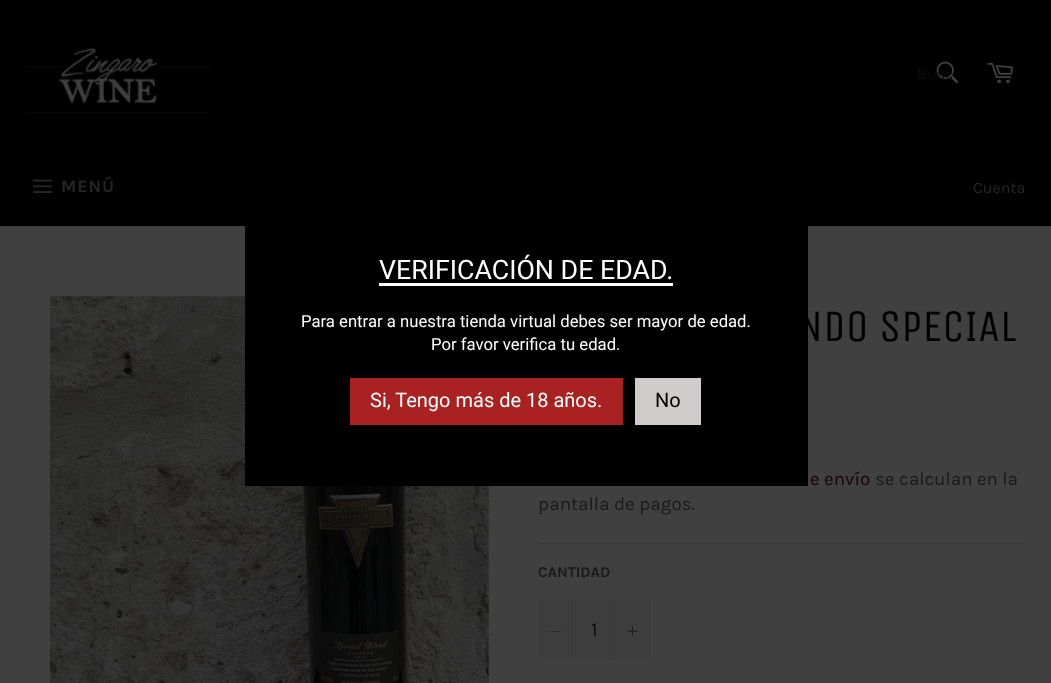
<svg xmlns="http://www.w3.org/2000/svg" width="1051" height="683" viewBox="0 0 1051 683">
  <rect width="100%" height="100%" fill="#000000"/>
  <image x="26" y="47" width="186" height="67" href="img1.png"/>
  <image x="936" y="61" width="23" height="23" href="img2.png"/>
  <text x="917" y="79" font-family="Karla" font-size="16" fill="#0d0d0d">Busc</text>
  <image x="987" y="63" width="26" height="21" href="img3.png"/>
  <rect x="0" y="148" width="1051" height="1" fill="#030303"/>
  <image x="32" y="179" width="21" height="14" href="img4.png"/>
  <text x="61" y="192" font-family="Karla" font-size="17.5" font-weight="bold" letter-spacing="1" fill="#262626">MENÚ</text>
  <text x="973" y="193" font-family="Karla" font-size="16" fill="#262626">Cuenta</text>
  <rect x="0" y="226" width="1051" height="457" fill="#404040"/>
  <image x="50" y="296" width="439" height="387" href="img5.png"/>
  <text x="798" y="341" font-family="Unica One" font-size="45" fill="#010101">NDO SPECIAL</text>
  <rect x="245" y="226" width="563" height="260" fill="#000000"/>
  <text x="379" y="279" font-family="Roboto" font-size="26.75" fill="#ffffff">VERIFICACIÓN DE EDAD.</text>
  <rect x="379" y="283" width="294" height="3" fill="#ffffff"/>
  <text x="301" y="327" font-family="Roboto" font-size="16.7" fill="#ffffff">Para entrar a nuestra tienda virtual debes ser mayor de edad.</text>
  <text x="431" y="350" font-family="Roboto" font-size="16.7" fill="#ffffff">Por favor verifica tu edad.</text>
  <rect x="350" y="378" width="273" height="47" fill="#a92121"/>
  <text x="370" y="407" font-family="Roboto" font-size="20" fill="#ffffff">Si, Tengo más de 18 años.</text>
  <rect x="635" y="378" width="66" height="47" fill="#d1cccc"/>
  <text x="655" y="407" font-family="Roboto" font-size="20" fill="#010101">No</text>
  <text x="810" y="485" font-family="Karla" font-size="18.75" fill="#190508">e envío</text>
  <text x="875" y="485" font-family="Karla" font-size="18.75" fill="#1a1a1a">se calculan en la</text>
  <text x="538" y="510" font-family="Karla" font-size="18.75" fill="#1a1a1a">pantalla de pagos.</text>
  <rect x="539" y="543" width="487" height="1" fill="#383737"/>
  <text x="538" y="577" font-family="Karla" font-size="15" font-weight="bold" fill="#1a1a1a">CANTIDAD</text>
  <rect x="539" y="599" width="112" height="60" fill="#3d3d3d"/>
  <rect x="575" y="599" width="1" height="60" fill="#3a3a3a"/>
  <path d="M561 631V631.5H551.5V631Z" fill="#1a1a1a" fill-rule="evenodd"/>
  <text x="591" y="636" font-family="Karla" font-size="20" fill="#0d0d0d">1</text>
  <rect x="614" y="599" width="1" height="60" fill="#3a3a3a"/>
  <image x="628" y="626" width="10" height="10" href="img6.png"/>
</svg>
